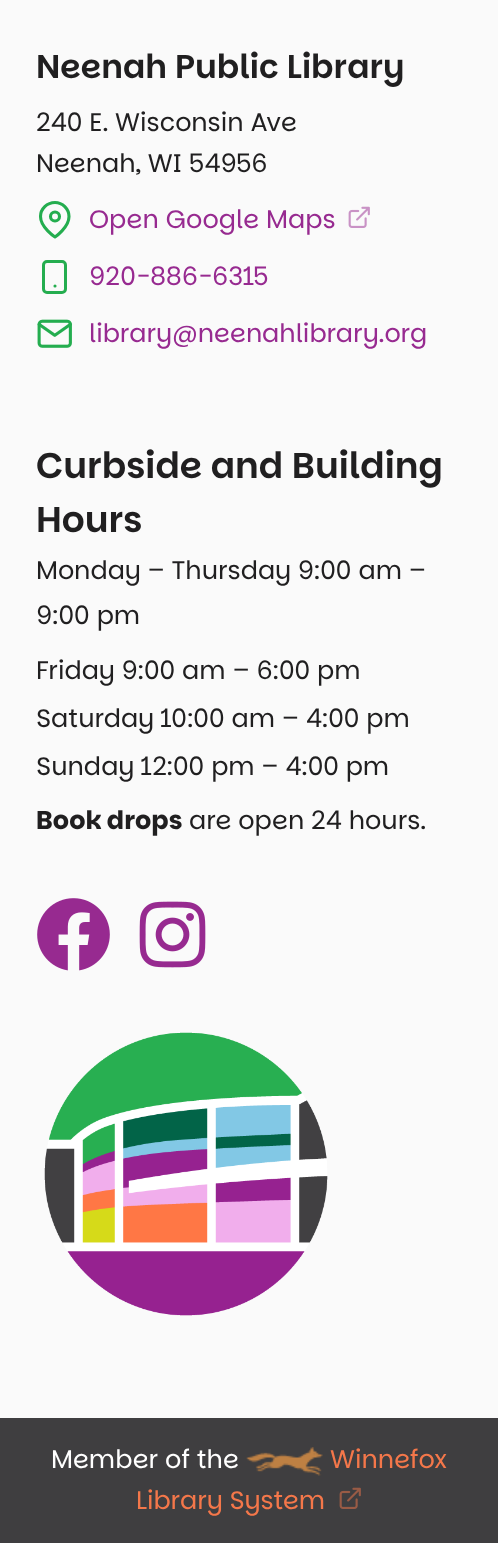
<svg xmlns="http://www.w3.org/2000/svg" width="498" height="1543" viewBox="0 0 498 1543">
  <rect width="100%" height="100%" fill="#fafafa"/>
  <text x="36" y="78" font-family="Parkinsans" font-size="33" font-weight="600" fill="#201f20">Neenah Public Library</text>
  <text x="36" y="131" font-family="Parkinsans" font-size="25.5" fill="#201f20">240 E. Wisconsin Ave</text>
  <text x="36" y="172" font-family="Parkinsans" font-size="25.5" fill="#201f20">Neenah, WI 54956</text>
  <path d="M69 216.5C69 227.5 55 237 55 237C55 237 40.5 227.5 40.5 216.5C40.5 209 47 202.5 55 202.5C62.5 202.5 69 209 69 216.5Z" fill="none" stroke="#24ad4f" stroke-width="3.1" stroke-linecap="round" stroke-linejoin="round"/>
  <circle cx="55" cy="216.5" r="4.5" fill="none" stroke="#24ad4f" stroke-width="3.1"/>
  <text x="89" y="228" font-family="Parkinsans" font-size="25.5" fill="#972a90">Open Google Maps</text>
  <image x="348" y="206" width="22" height="22" href="img1.png"/>
  <rect x="43.5" y="261.5" width="22" height="31" rx="3.5" fill="none" stroke="#24ad4f" stroke-width="3"/>
  <path d="M55 286H55" fill="none" stroke="#24ad4f" stroke-width="3.1" stroke-linecap="round" stroke-linejoin="round"/>
  <text x="89" y="285" font-family="Parkinsans" font-size="25.5" fill="#972a90">920-886-6315</text>
  <image x="37" y="319" width="35" height="29" href="img2.png"/>
  <text x="89" y="342" font-family="Parkinsans" font-size="25.5" fill="#972a90">library@neenahlibrary.org</text>
  <text x="36" y="478" font-family="Parkinsans" font-size="36" font-weight="600" fill="#201f20">Curbside and Building</text>
  <text x="36" y="532" font-family="Parkinsans" font-size="36" font-weight="600" fill="#201f20">Hours</text>
  <text x="36" y="579" font-family="Parkinsans" font-size="25.5" fill="#201f20">Monday – Thursday 9:00 am –</text>
  <text x="36" y="624" font-family="Parkinsans" font-size="25.5" fill="#201f20">9:00 pm</text>
  <text x="36" y="679" font-family="Parkinsans" font-size="25.5" fill="#201f20">Friday 9:00 am – 6:00 pm</text>
  <text x="36" y="727" font-family="Parkinsans" font-size="25.5" fill="#201f20">Saturday 10:00 am – 4:00 pm</text>
  <text x="36" y="775" font-family="Parkinsans" font-size="25.5" fill="#201f20">Sunday 12:00 pm – 4:00 pm</text>
  <text x="36" y="829" font-family="Parkinsans" font-size="25.5" font-weight="bold" fill="#201f20">Book drops</text>
  <text x="189" y="829" font-family="Parkinsans" font-size="25.5" fill="#201f20">are open 24 hours.</text>
  <image x="37" y="898" width="73" height="73" href="img3.png"/>
  <image x="139" y="901" width="67" height="67" href="img4.png"/>
  <image x="44" y="1032" width="284" height="284" href="img5.png"/>
  <rect x="0" y="1418" width="498" height="125" fill="#3f3e40"/>
  <text x="51" y="1468" font-family="Parkinsans" font-size="25.5" fill="#ffffff">Member of the</text>
  <image x="246" y="1447" width="77" height="29" href="img6.png"/>
  <text x="330" y="1468" font-family="Parkinsans" font-size="25.5" fill="#f4774a">Winnefox</text>
  <text x="136" y="1509" font-family="Parkinsans" font-size="25.5" fill="#f4774a">Library System</text>
  <image x="339" y="1487" width="22" height="22" href="img7.png"/>
</svg>
